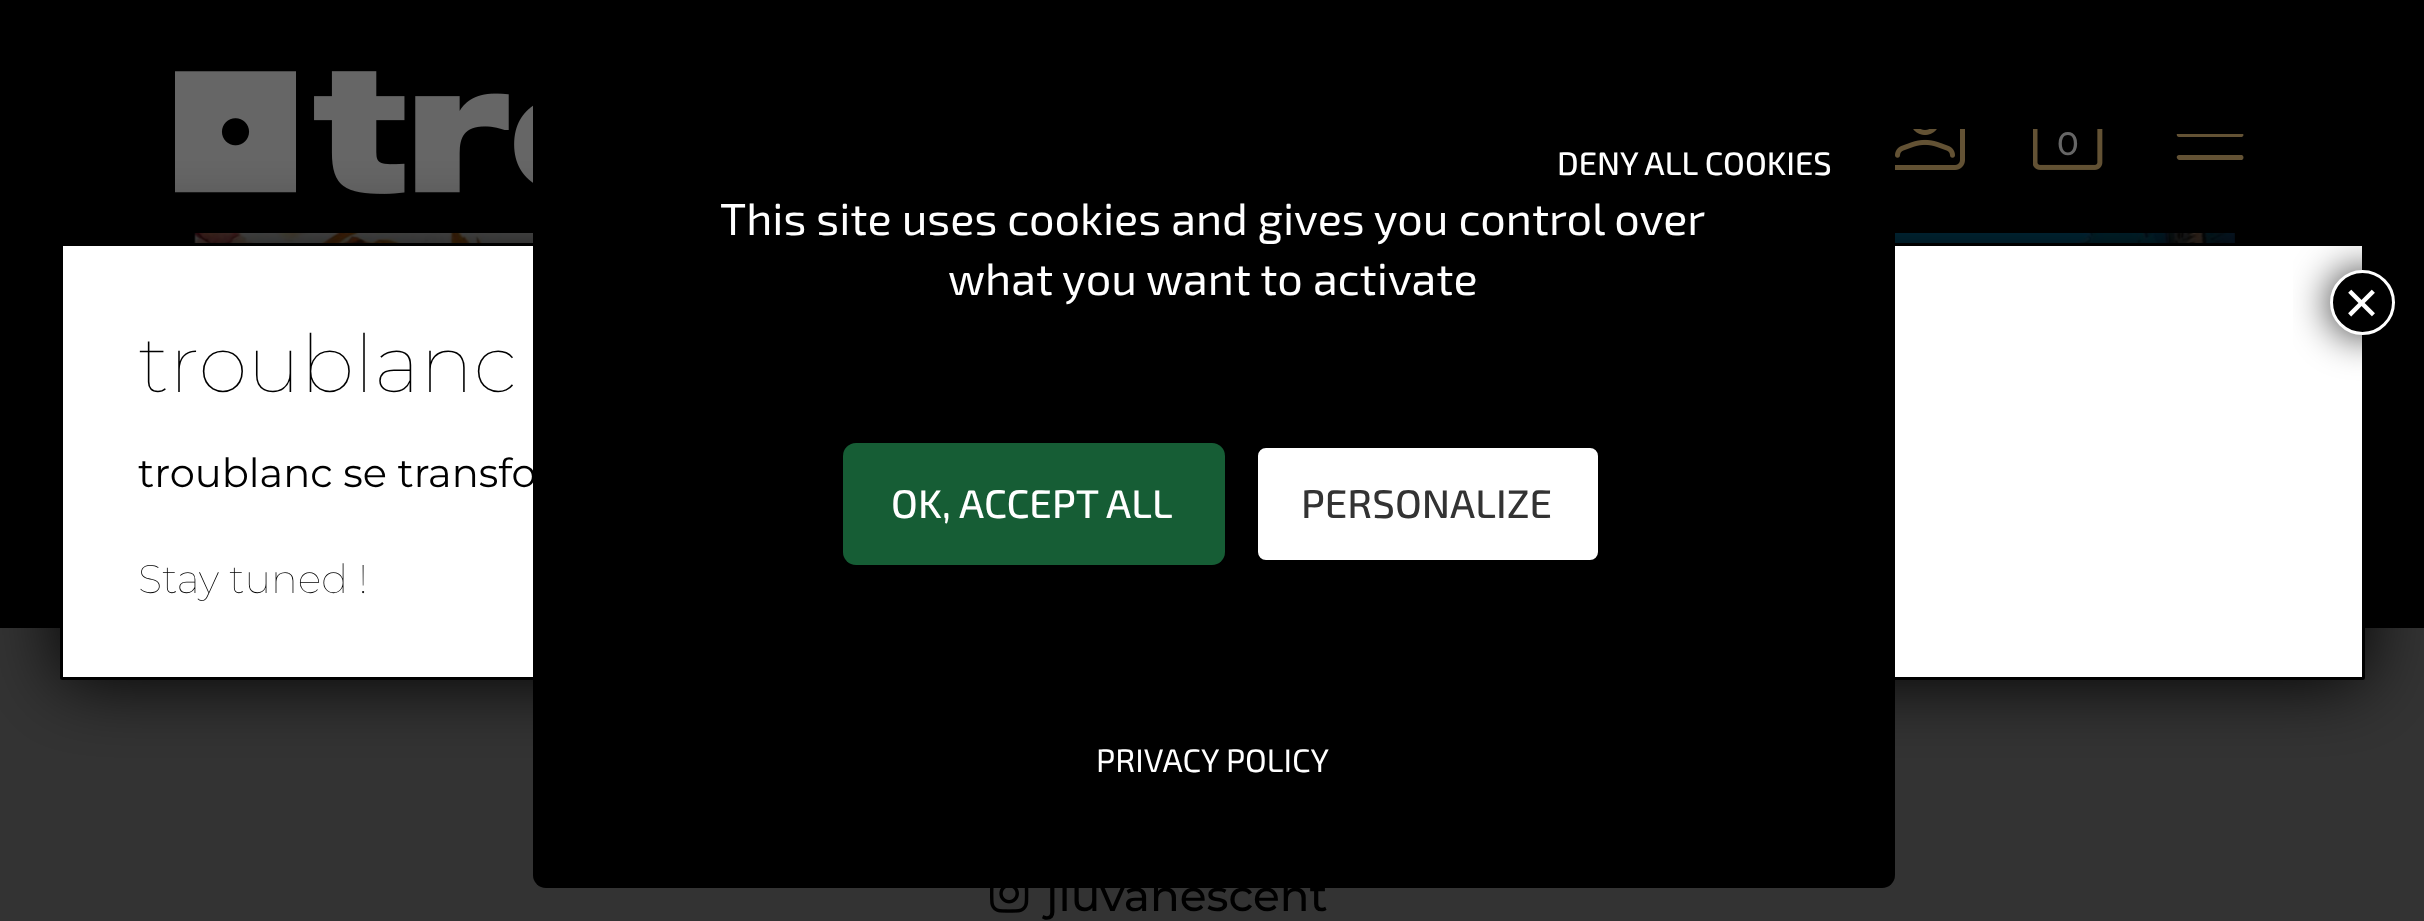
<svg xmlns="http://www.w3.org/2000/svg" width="2424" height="921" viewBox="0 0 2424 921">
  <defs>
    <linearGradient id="g1" gradientUnits="userSpaceOnUse" x1="2210" y1="94" x2="2210" y2="174"><stop offset="0.5" stop-color="#000000"/><stop offset="0.5" stop-color="#635234"/></linearGradient>
    <filter id="blur1" x="-50%" y="-200%" width="200%" height="500%"><feGaussianBlur stdDeviation="37.5"/></filter>
    <filter id="blur2" x="-50%" y="-200%" width="200%" height="500%"><feGaussianBlur stdDeviation="19"/></filter>
  </defs>
  <rect width="100%" height="100%" fill="#333333"/>
  <rect x="0" y="0" width="2424" height="628" fill="#000000"/>
  <image x="175" y="71" width="358" height="123" href="img1.png"/>
  <image x="1895" y="129" width="70" height="41" href="img2.png"/>
  <image x="2033" y="129" width="70" height="41" href="img3.png"/>
  <text x="2057" y="155" font-family="Montserrat" font-size="32.5" font-weight="500" fill="#666666">0</text>
  <path d="M2179 110C2176 110 2176 114 2179 115H2242C2244 114 2244 111 2242 110ZM2179 132C2176 132 2176 137 2179 137H2242C2244 136 2244 134 2242 133ZM2179 155C2176 155 2176 159 2179 160H2242C2244 159 2244 156 2242 155Z" fill="url(#g1)"/>
  <image x="194" y="233" width="339" height="10" href="img4.png"/>
  <image x="1895" y="233" width="340" height="10" href="img5.png"/>
  <image x="990" y="888" width="39" height="25" href="img6.png"/>
  <text x="1046" y="911" font-family="Montserrat" font-size="43.75" font-weight="500" fill="#000000">jiuvanescent</text>
  <rect x="60" y="243" width="2305" height="437" rx="2.5" fill="#020202" filter="url(#blur1)"/>
  <rect x="61.5" y="244.5" width="2302" height="434" rx="1" fill="#ffffff" stroke="#000000" stroke-width="3"/>
  <rect x="533" y="40" width="1362" height="848" rx="13" fill="#000000"/>
  <text x="1557" y="175" font-family="'Exo 2'" font-size="32.5" font-weight="500" fill="#ffffff">DENY ALL COOKIES</text>
  <text x="720" y="235" font-family="'Exo 2'" font-size="45" fill="#ffffff">This site uses cookies and gives you control over</text>
  <text x="948" y="295" font-family="'Exo 2'" font-size="45" fill="#ffffff">what you want to activate</text>
  <rect x="843" y="443" width="382" height="122" rx="13" fill="#165d35"/>
  <text x="891" y="518" font-family="'Exo 2'" font-size="40" font-weight="500" fill="#ffffff">OK, ACCEPT ALL</text>
  <rect x="1255.5" y="445.5" width="345" height="117" rx="10.5" fill="#ffffff" stroke="#000000" stroke-width="5"/>
  <text x="1301" y="518" font-family="'Exo 2'" font-size="40" font-weight="500" fill="#333333">PERSONALIZE</text>
  <text x="1096" y="772" font-family="'Exo 2'" font-size="32.5" fill="#ffffff">PRIVACY POLICY</text>
  <rect x="2328" y="268" width="70" height="70" rx="35" fill="#020202" fill-opacity="0.75" filter="url(#blur2)"/>
  <circle cx="2362.5" cy="302.5" r="31" fill="#000000" stroke="#ffffff" stroke-width="3"/>
  <text x="2344" y="323" font-family="Liberation Sans" font-size="60" fill="#ffffff">×</text>
  <text x="138" y="392" font-family="Montserrat" font-size="80" font-weight="100" fill="#000000">troublanc</text>
  <text x="138" y="487" font-family="Montserrat" font-size="40" fill="#000000">troublanc se transfo</text>
  <text x="138" y="593" font-family="Montserrat" font-size="40" font-weight="100" fill="#000000">Stay tuned !</text>
</svg>
